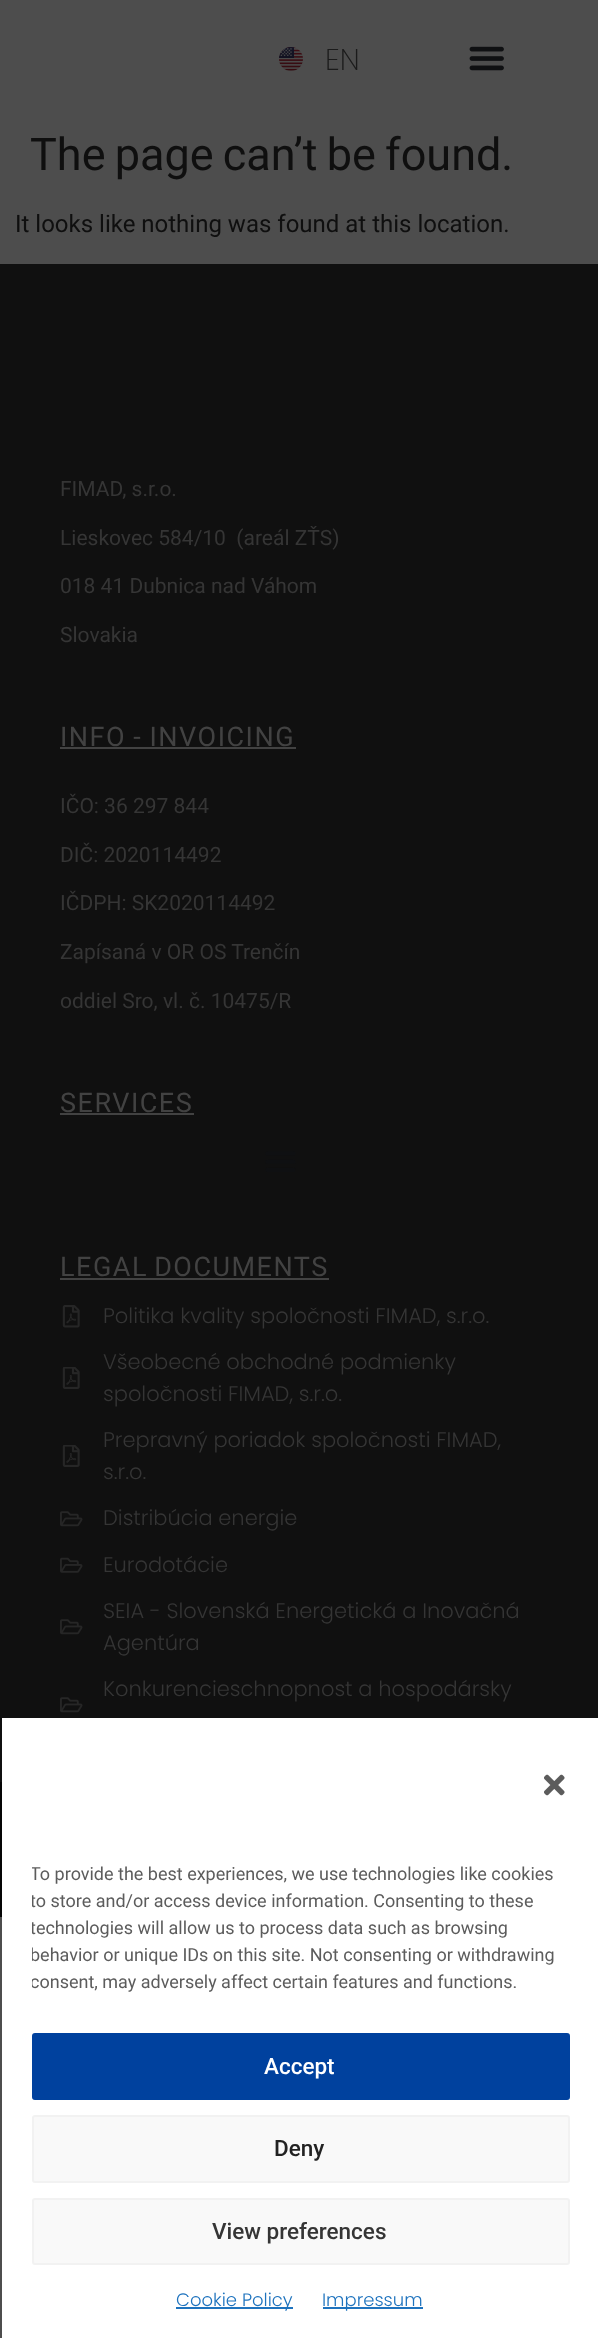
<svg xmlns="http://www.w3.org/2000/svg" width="598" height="2338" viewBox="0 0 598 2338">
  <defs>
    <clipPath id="clip1"><rect x="32" y="1860" width="538" height="143"/></clipPath>
  </defs>
  <rect width="100%" height="100%" fill="#4d4d4d"/>
  <image x="279" y="47" width="24" height="24" href="img1.png"/>
  <text x="325" y="70" font-family="Poppins" font-size="30" font-weight="200" fill="#1b1b1b">EN</text>
  <image x="469" y="46" width="35" height="25" href="img2.png"/>
  <text x="30" y="170" word-spacing="-2" font-family="Roboto" font-size="45" fill="#0f0f0f">The page can’t be found.</text>
  <text x="15" y="232" font-family="'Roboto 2'" font-size="24" fill="#0f0f0f">It looks like nothing was found at this location.</text>
  <rect x="0" y="264" width="598" height="1518" fill="#101010"/>
  <text x="60" y="496" font-family="Roboto" font-size="21" fill="#353535">FIMAD, s.r.o.</text>
  <text x="60" y="545" font-family="Roboto" font-size="21" fill="#353535" xml:space="preserve">Lieskovec 584/10  (areál ZŤS)</text>
  <text x="60" y="593" font-family="Roboto" font-size="21" fill="#353535">018 41 Dubnica nad Váhom</text>
  <text x="60" y="642" font-family="Roboto" font-size="21" fill="#353535">Slovakia</text>
  <text x="60" y="746" word-spacing="-1" font-family="Roboto" font-size="27" letter-spacing="1.5" fill="#424242">INFO - INVOICING</text>
  <rect x="60" y="747" width="236" height="2" fill="#424242"/>
  <text x="60" y="813" font-family="Roboto" font-size="21" fill="#353535">IČO: 36 297 844</text>
  <text x="60" y="862" font-family="Roboto" font-size="21" fill="#353535">DIČ: 2020114492</text>
  <text x="60" y="910" font-family="Roboto" font-size="21" fill="#353535">IČDPH: SK2020114492</text>
  <text x="60" y="959" font-family="Roboto" font-size="21" fill="#353535">Zapísaná v OR OS Trenčín</text>
  <text x="60" y="1008" font-family="Roboto" font-size="21" fill="#353535">oddiel Sro, vl. č. 10475/R</text>
  <text x="60" y="1112" font-family="Roboto" font-size="27" letter-spacing="1.5" fill="#424242">SERVICES</text>
  <rect x="60" y="1113" width="134" height="2" fill="#424242"/>
  <image x="265" y="1151" width="31" height="21" href="img3.png"/>
  <text x="60" y="1276" word-spacing="-2" font-family="Roboto" font-size="27" letter-spacing="1.5" fill="#424242">LEGAL DOCUMENTS</text>
  <rect x="60" y="1278" width="269" height="2" fill="#424242"/>
  <image x="62" y="1305" width="18" height="23" href="img4.png"/>
  <text x="103" y="1323" font-family="Poppins" font-size="21" font-weight="300" fill="#353535">Politika kvality spoločnosti FIMAD, s.r.o.</text>
  <image x="62" y="1367" width="18" height="22" href="img5.png"/>
  <text x="103" y="1369" font-family="Poppins" font-size="21" font-weight="300" fill="#353535">Všeobecné obchodné podmienky</text>
  <text x="103" y="1401" font-family="Poppins" font-size="21" font-weight="300" fill="#353535">spoločnosti FIMAD, s.r.o.</text>
  <image x="62" y="1445" width="18" height="22" href="img5.png"/>
  <text x="103" y="1447" font-family="Poppins" font-size="21" font-weight="300" fill="#353535">Prepravný poriadok spoločnosti FIMAD,</text>
  <text x="103" y="1479" font-family="Poppins" font-size="21" font-weight="300" fill="#353535">s.r.o.</text>
  <image x="60" y="1511" width="23" height="16" href="img6.png"/>
  <text x="103" y="1525" font-family="Poppins" font-size="21" font-weight="300" fill="#353535">Distribúcia energie</text>
  <image x="60" y="1557" width="23" height="16" href="img7.png"/>
  <text x="103" y="1572" font-family="Poppins" font-size="21" font-weight="300" fill="#353535">Eurodotácie</text>
  <image x="60" y="1619" width="23" height="16" href="img6.png"/>
  <text x="103" y="1618" font-family="Poppins" font-size="21" font-weight="300" fill="#353535">SEIA - Slovenská Energetická a Inovačná</text>
  <text x="103" y="1650" font-family="Poppins" font-size="21" font-weight="300" fill="#353535">Agentúra</text>
  <text x="103" y="1696" font-family="Poppins" font-size="21" font-weight="300" fill="#353535">Konkurencieschnopnost a hospodársky</text>
  <image x="60" y="1697" width="23" height="16" href="img6.png"/>
  <rect x="0" y="1782" width="2" height="135" fill="#050505"/>
  <rect x="2" y="1718" width="596" height="620" fill="#ffffff"/>
  <image x="544" y="1774" width="21" height="22" href="img8.png"/>
  <g clip-path="url(#clip1)">
    <text x="30" y="1880" font-family="'Roboto 2'" font-size="18" fill="#5c5c5c">To provide the best experiences, we use technologies like cookies</text>
    <text x="30" y="1907" font-family="'Roboto 2'" font-size="18" fill="#5c5c5c">to store and/or access device information. Consenting to these</text>
    <text x="30" y="1934" font-family="'Roboto 2'" font-size="18" fill="#5c5c5c">technologies will allow us to process data such as browsing</text>
    <text x="30" y="1961" font-family="'Roboto 2'" font-size="18" fill="#5c5c5c">behavior or unique IDs on this site. Not consenting or withdrawing</text>
    <text x="30" y="1988" font-family="'Roboto 2'" font-size="18" fill="#5c5c5c">consent, may adversely affect certain features and functions.</text>
  </g>
  <rect x="33" y="2034" width="536" height="65" rx="2" fill="#00419e" stroke="#00419e" stroke-width="2"/>
  <text x="264" y="2074" font-family="Roboto" font-size="22.5" font-weight="500" fill="#ffffff">Accept</text>
  <rect x="33" y="2116" width="536" height="66" rx="2" fill="#f9f9f9" stroke="#f2f2f2" stroke-width="2"/>
  <text x="274" y="2156" font-family="Roboto" font-size="22.5" font-weight="500" fill="#222222">Deny</text>
  <rect x="33" y="2199" width="536" height="65" rx="2" fill="#f9f9f9" stroke="#f2f2f2" stroke-width="2"/>
  <text x="212" y="2239" font-family="Roboto" font-size="22.5" font-weight="500" fill="#353535">View preferences</text>
  <rect x="176" y="2307" width="117" height="2" fill="#1e73be"/>
  <text x="176" y="2306" font-family="Poppins" font-size="18" font-weight="300" fill="#1e73be">Cookie Policy</text>
  <rect x="323" y="2307" width="100" height="2" fill="#1e73be"/>
  <text x="322" y="2306" font-family="Poppins" font-size="18" font-weight="300" fill="#1e73be">Impressum</text>
</svg>
